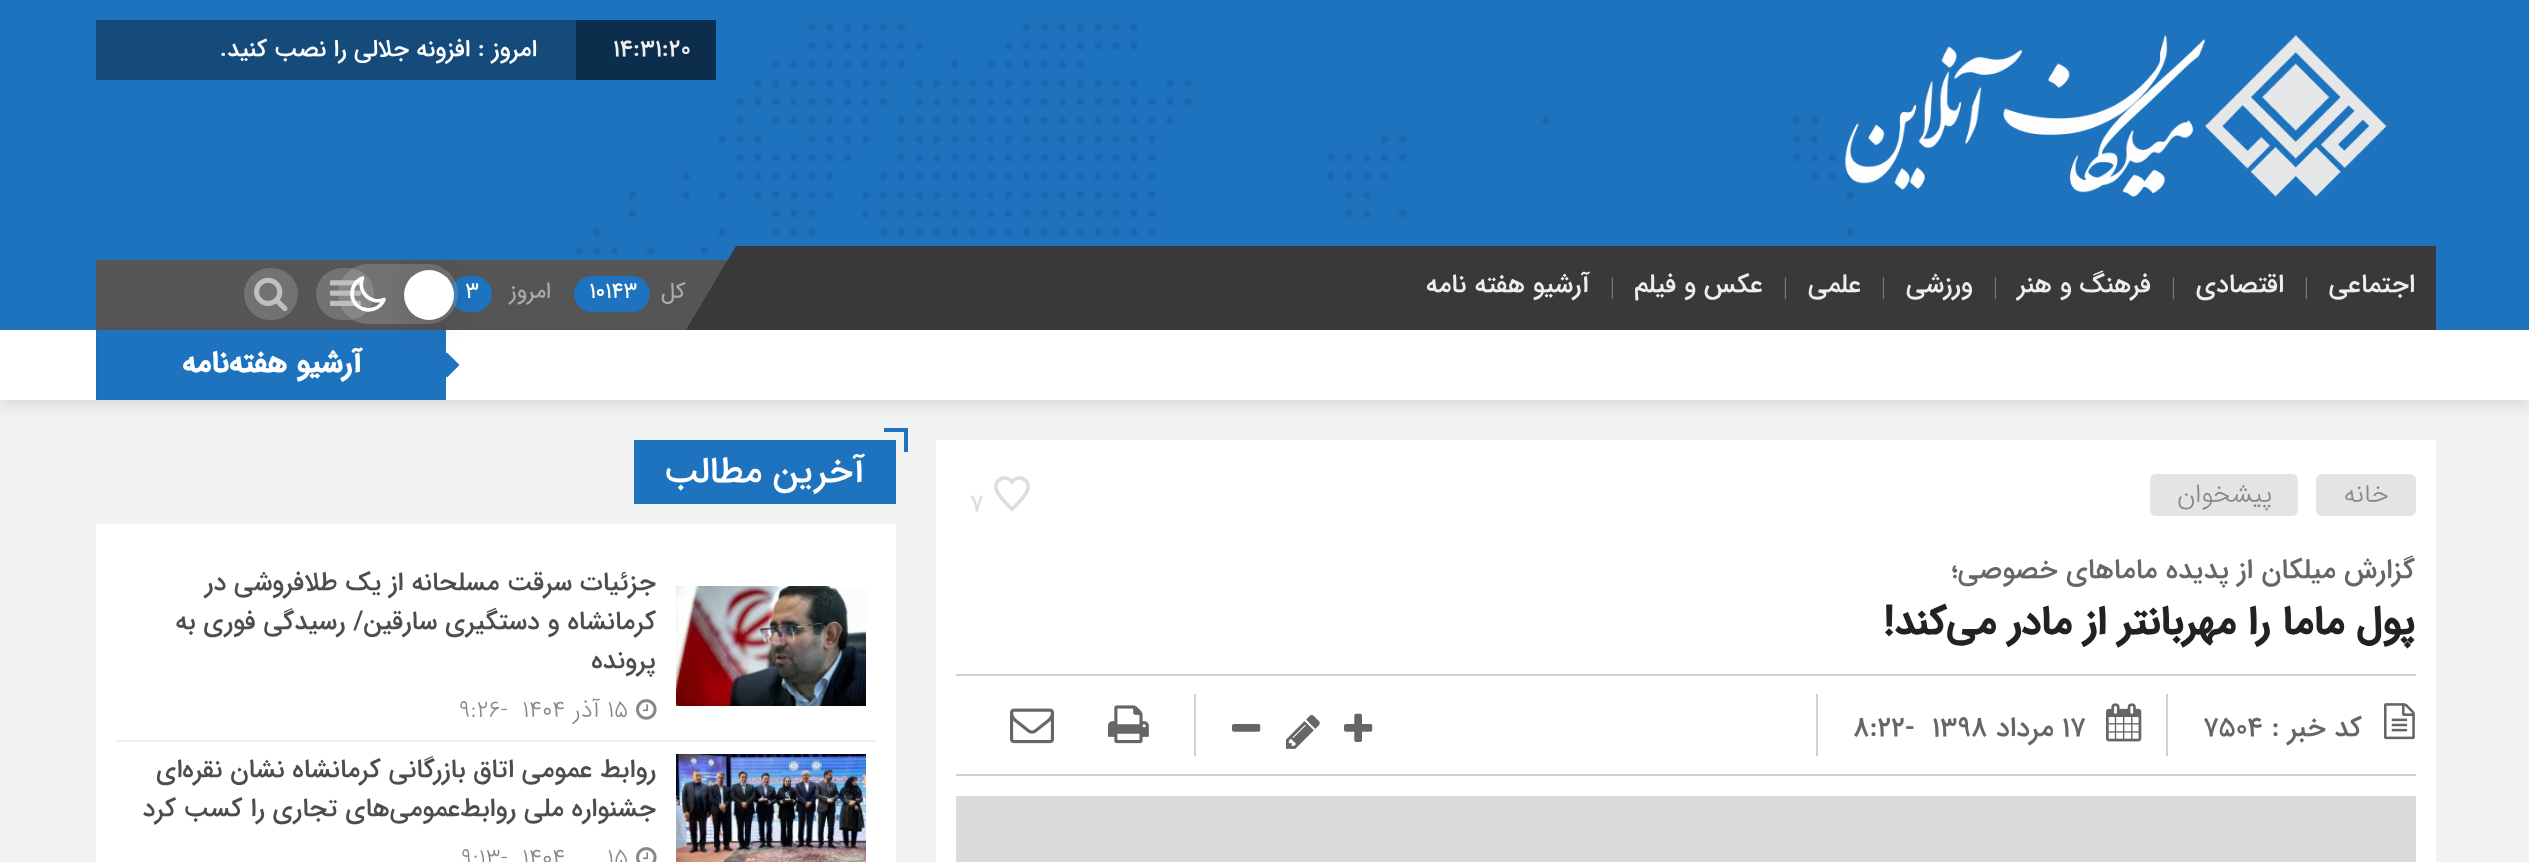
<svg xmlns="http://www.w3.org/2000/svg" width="2529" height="862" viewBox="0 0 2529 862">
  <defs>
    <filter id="blur1" x="-50%" y="-200%" width="200%" height="500%"><feGaussianBlur stdDeviation="8"/></filter>
    <filter id="blur2" x="-50%" y="-200%" width="200%" height="500%"><feGaussianBlur stdDeviation="15"/></filter>
  </defs>
  <rect width="100%" height="100%" fill="#f2f2f2"/>
  <rect x="0" y="0" width="2529" height="330" fill="#1e73be"/>
  <image x="575" y="23" width="1280" height="232" href="img1.png"/>
  <image x="1845" y="35" width="542" height="162" href="img2.png"/>
  <rect x="576" y="20" width="140" height="60" fill="#0c2e4c"/>
  <text x="613" y="56" font-family="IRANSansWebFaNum" font-size="24" font-weight="500" fill="#eeeeee">14:31:20</text>
  <rect x="96" y="20" width="480" height="60" fill="#144b7b"/>
  <text x="537" y="56" font-family="IRANSansWebFaNum" font-size="24" font-weight="500" direction="rtl" fill="#ffffff">امروز : افزونه جلالی را نصب کنید.</text>
  <rect x="96" y="260" width="632" height="70" fill="#555555"/>
  <rect x="244" y="268" width="54" height="52" rx="26" fill="#727272"/>
  <image x="254" y="277" width="34" height="35" href="img3.png"/>
  <rect x="574" y="276" width="76" height="36" rx="18" fill="#1e73be"/>
  <rect x="450" y="276" width="42" height="36" rx="18" fill="#1e73be"/>
  <rect x="316" y="268" width="58" height="52" rx="26" fill="#727272"/>
  <rect x="0" y="336" width="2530" height="70" fill="#000000" fill-opacity="0.1" filter="url(#blur1)"/>
  <rect x="736" y="246" width="1700" height="84" fill="#393939"/>
  <text x="2415" y="292" font-family="IRANSansWebFaNum" font-size="26" font-weight="500" direction="rtl" fill="#eeeeee">اجتماعی</text>
  <text x="2304" y="294" font-family="Liberation Serif" font-size="24" fill="#777777">|</text>
  <text x="2284" y="292" font-family="IRANSansWebFaNum" font-size="26" font-weight="500" direction="rtl" fill="#eeeeee">اقتصادی</text>
  <text x="2171" y="294" font-family="Liberation Serif" font-size="24" fill="#777777">|</text>
  <text x="2151" y="292" font-family="IRANSansWebFaNum" font-size="26" font-weight="500" direction="rtl" fill="#eeeeee">فرهنگ و هنر</text>
  <text x="1993" y="294" font-family="Liberation Serif" font-size="24" fill="#777777">|</text>
  <text x="1973" y="292" font-family="IRANSansWebFaNum" font-size="26" font-weight="500" direction="rtl" fill="#eeeeee">ورزشی</text>
  <text x="1881" y="294" font-family="Liberation Serif" font-size="24" fill="#777777">|</text>
  <text x="1861" y="292" font-family="IRANSansWebFaNum" font-size="26" font-weight="500" direction="rtl" fill="#eeeeee">علمی</text>
  <text x="1783" y="294" font-family="Liberation Serif" font-size="24" fill="#777777">|</text>
  <text x="1763" y="292" font-family="IRANSansWebFaNum" font-size="26" font-weight="500" direction="rtl" fill="#eeeeee">عکس و فیلم</text>
  <text x="1610" y="294" font-family="Liberation Serif" font-size="24" fill="#777777">|</text>
  <text x="1590" y="292" font-family="IRANSansWebFaNum" font-size="26" font-weight="500" direction="rtl" fill="#eeeeee">آرشیو هفته نامه</text>
  <path d="M736 246V330H686Z" fill="#393939"/>
  <image x="330" y="280" width="31" height="26" href="img4.png"/>
  <rect x="338" y="264" width="120" height="60" rx="30" fill="#b9b9b9" fill-opacity="0.29"/>
  <path d="M384 299.5C370.5 305 357 291.5 362.5 278C358 280 354.5 283.5 353 288C352 291.5 351.5 294.5 352.5 298C357 313 378 314 384 299.5Z" fill="none" stroke="#ffffff" stroke-width="3.7" stroke-linecap="round" stroke-linejoin="round"/>
  <rect x="0" y="330" width="2529" height="70" fill="#ffffff"/>
  <rect x="98" y="330" width="348" height="70" fill="#1e73be"/>
  <path d="M447 352.5L459.5 365L447 377.5L434.5 365Z" fill="#1e73be"/>
  <rect x="404" y="274" width="50" height="50" rx="25" fill="#000000" fill-opacity="0.15" filter="url(#blur2)"/>
  <circle cx="429" cy="295" r="25" fill="#ffffff"/>
  <text x="685" y="298" font-family="IRANSansWebFaNum" font-size="22" font-weight="bold" direction="rtl" fill="#ababab">کل</text>
  <text x="589" y="298" font-family="IRANSansWebFaNum" font-size="22" font-weight="bold" fill="#ffffff">10143</text>
  <text x="551" y="298" font-family="IRANSansWebFaNum" font-size="22" font-weight="bold" direction="rtl" fill="#ababab">امروز</text>
  <text x="465" y="298" font-family="IRANSansWebFaNum" font-size="22" font-weight="bold" fill="#ffffff">3</text>
  <rect x="96" y="330" width="2" height="70" fill="#1d70b8"/>
  <text x="362" y="372" font-family="'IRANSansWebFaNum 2'" font-size="30" font-weight="bold" direction="rtl" fill="#ffffff">آرشیو هفته‌نامه</text>
  <rect x="936" y="440" width="1500" height="422" fill="#ffffff"/>
  <rect x="2316" y="474" width="100" height="42" rx="6" fill="#e4e4e4"/>
  <text x="2389" y="502" font-family="IRANSansWebFaNum" font-size="26" font-weight="300" direction="rtl" fill="#888888">خانه</text>
  <rect x="2150" y="474" width="148" height="42" rx="6" fill="#e4e4e4"/>
  <text x="2272" y="502" font-family="IRANSansWebFaNum" font-size="26" font-weight="300" direction="rtl" fill="#888888">پیشخوان</text>
  <image x="994" y="476" width="36" height="36" href="img5.png"/>
  <text x="970" y="511" font-family="IRANSansWebFaNum" font-size="24" font-weight="500" fill="#dddddd">7</text>
  <text x="2415" y="578" font-family="IRANSansWebFaNum" font-size="28" font-weight="500" direction="rtl" fill="#666666">گزارش میلکان از پدیده ماماهای خصوصی؛</text>
  <text x="2415" y="634" font-family="'IRANSansWebFaNum 2'" font-size="40" font-weight="bold" direction="rtl" fill="#222222">پول ماما را مهربانتر</text>
  <text x="2106" y="634" font-family="'IRANSansWebFaNum 2'" font-size="40" font-weight="bold" direction="rtl" fill="#222222">از مادر می‌کند!</text>
  <rect x="956" y="674" width="1460" height="2" fill="#cfcfcf"/>
  <rect x="956" y="774" width="1460" height="2" fill="#cfcfcf"/>
  <image x="2384" y="703" width="31" height="37" href="img6.png"/>
  <text x="2362" y="736" font-family="IRANSansWebFaNum" font-size="28" font-weight="500" direction="rtl" fill="#666666">کد خبر :</text>
  <text x="2203" y="736" font-family="IRANSansWebFaNum" font-size="28" font-weight="500" fill="#666666">7504</text>
  <rect x="2166" y="694" width="2" height="62" fill="#cfcfcf"/>
  <image x="2106" y="703" width="36" height="39" href="img7.png"/>
  <text x="2062" y="736" font-family="IRANSansWebFaNum" font-size="28" font-weight="500" fill="#666666">17</text>
  <text x="2054" y="736" font-family="IRANSansWebFaNum" font-size="28" font-weight="500" direction="rtl" fill="#666666">مرداد</text>
  <text x="1932" y="736" font-family="IRANSansWebFaNum" font-size="28" font-weight="500" fill="#666666">1398</text>
  <text x="1853" y="736" font-family="IRANSansWebFaNum" font-size="28" font-weight="500" fill="#666666">8:22-</text>
  <rect x="1816" y="694" width="2" height="62" fill="#cfcfcf"/>
  <image x="1344" y="713" width="29" height="29" href="img8.png"/>
  <image x="1286" y="715" width="34" height="34" href="img9.png"/>
  <image x="1232" y="724" width="29" height="8" href="img10.png"/>
  <rect x="1194" y="694" width="2" height="62" fill="#cfcfcf"/>
  <image x="1108" y="705" width="41" height="39" href="img11.png"/>
  <image x="1010" y="708" width="44" height="36" href="img12.png"/>
  <rect x="956" y="796" width="1460" height="66" fill="#dadada"/>
  <rect x="634" y="440" width="262" height="64" fill="#1e73be"/>
  <rect x="884" y="428" width="24" height="4" fill="#1e73be"/>
  <rect x="904" y="428" width="4" height="24" fill="#1e73be"/>
  <text x="865" y="482" font-family="IRANSansWebFaNum" font-size="36" font-weight="500" direction="rtl" fill="#ffffff">آخرین مطالب</text>
  <rect x="96" y="524" width="800" height="338" fill="#ffffff"/>
  <rect x="116" y="740" width="760" height="2" fill="#eeeeee"/>
  <image x="676" y="586" width="190" height="120" href="img13.png"/>
  <text x="656" y="590" font-family="IRANSansWebFaNum" font-size="26" font-weight="500" direction="rtl" fill="#4d4d4d">جزئیات سرقت مسلحانه از یک طلافروشی در</text>
  <text x="656" y="629" font-family="IRANSansWebFaNum" font-size="26" font-weight="500" direction="rtl" fill="#4d4d4d">کرمانشاه و دستگیری سارقین/ رسیدگی فوری به</text>
  <text x="656" y="668" font-family="IRANSansWebFaNum" font-size="26" font-weight="500" direction="rtl" fill="#4d4d4d">پرونده‌</text>
  <image x="636" y="699" width="21" height="21" href="img14.png"/>
  <text x="607" y="717" font-family="IRANSansWebFaNum" font-size="24" font-weight="300" fill="#888888">15</text>
  <text x="600" y="717" font-family="IRANSansWebFaNum" font-size="24" font-weight="300" direction="rtl" fill="#888888">آذر</text>
  <text x="522" y="717" font-family="IRANSansWebFaNum" font-size="24" font-weight="300" fill="#888888">1404</text>
  <text x="459" y="717" font-family="IRANSansWebFaNum" font-size="24" font-weight="300" fill="#888888">9:26-</text>
  <image x="676" y="754" width="190" height="108" href="img15.png"/>
  <text x="656" y="777" font-family="IRANSansWebFaNum" font-size="26" font-weight="500" direction="rtl" fill="#4d4d4d">روابط‌ عمومی اتاق بازرگانی کرمانشاه نشان نقره‌ای</text>
  <text x="656" y="816" font-family="IRANSansWebFaNum" font-size="26" font-weight="500" direction="rtl" fill="#4d4d4d">جشنواره ملی روابط‌عمومی‌های تجاری را کسب کرد</text>
  <image x="636" y="847" width="21" height="15" href="img16.png"/>
  <text x="607" y="865" font-family="IRANSansWebFaNum" font-size="24" font-weight="300" fill="#888888">15</text>
  <text x="522" y="865" font-family="IRANSansWebFaNum" font-size="24" font-weight="300" fill="#888888">1404</text>
  <text x="461" y="865" font-family="IRANSansWebFaNum" font-size="24" font-weight="300" fill="#888888">9:13-</text>
</svg>
